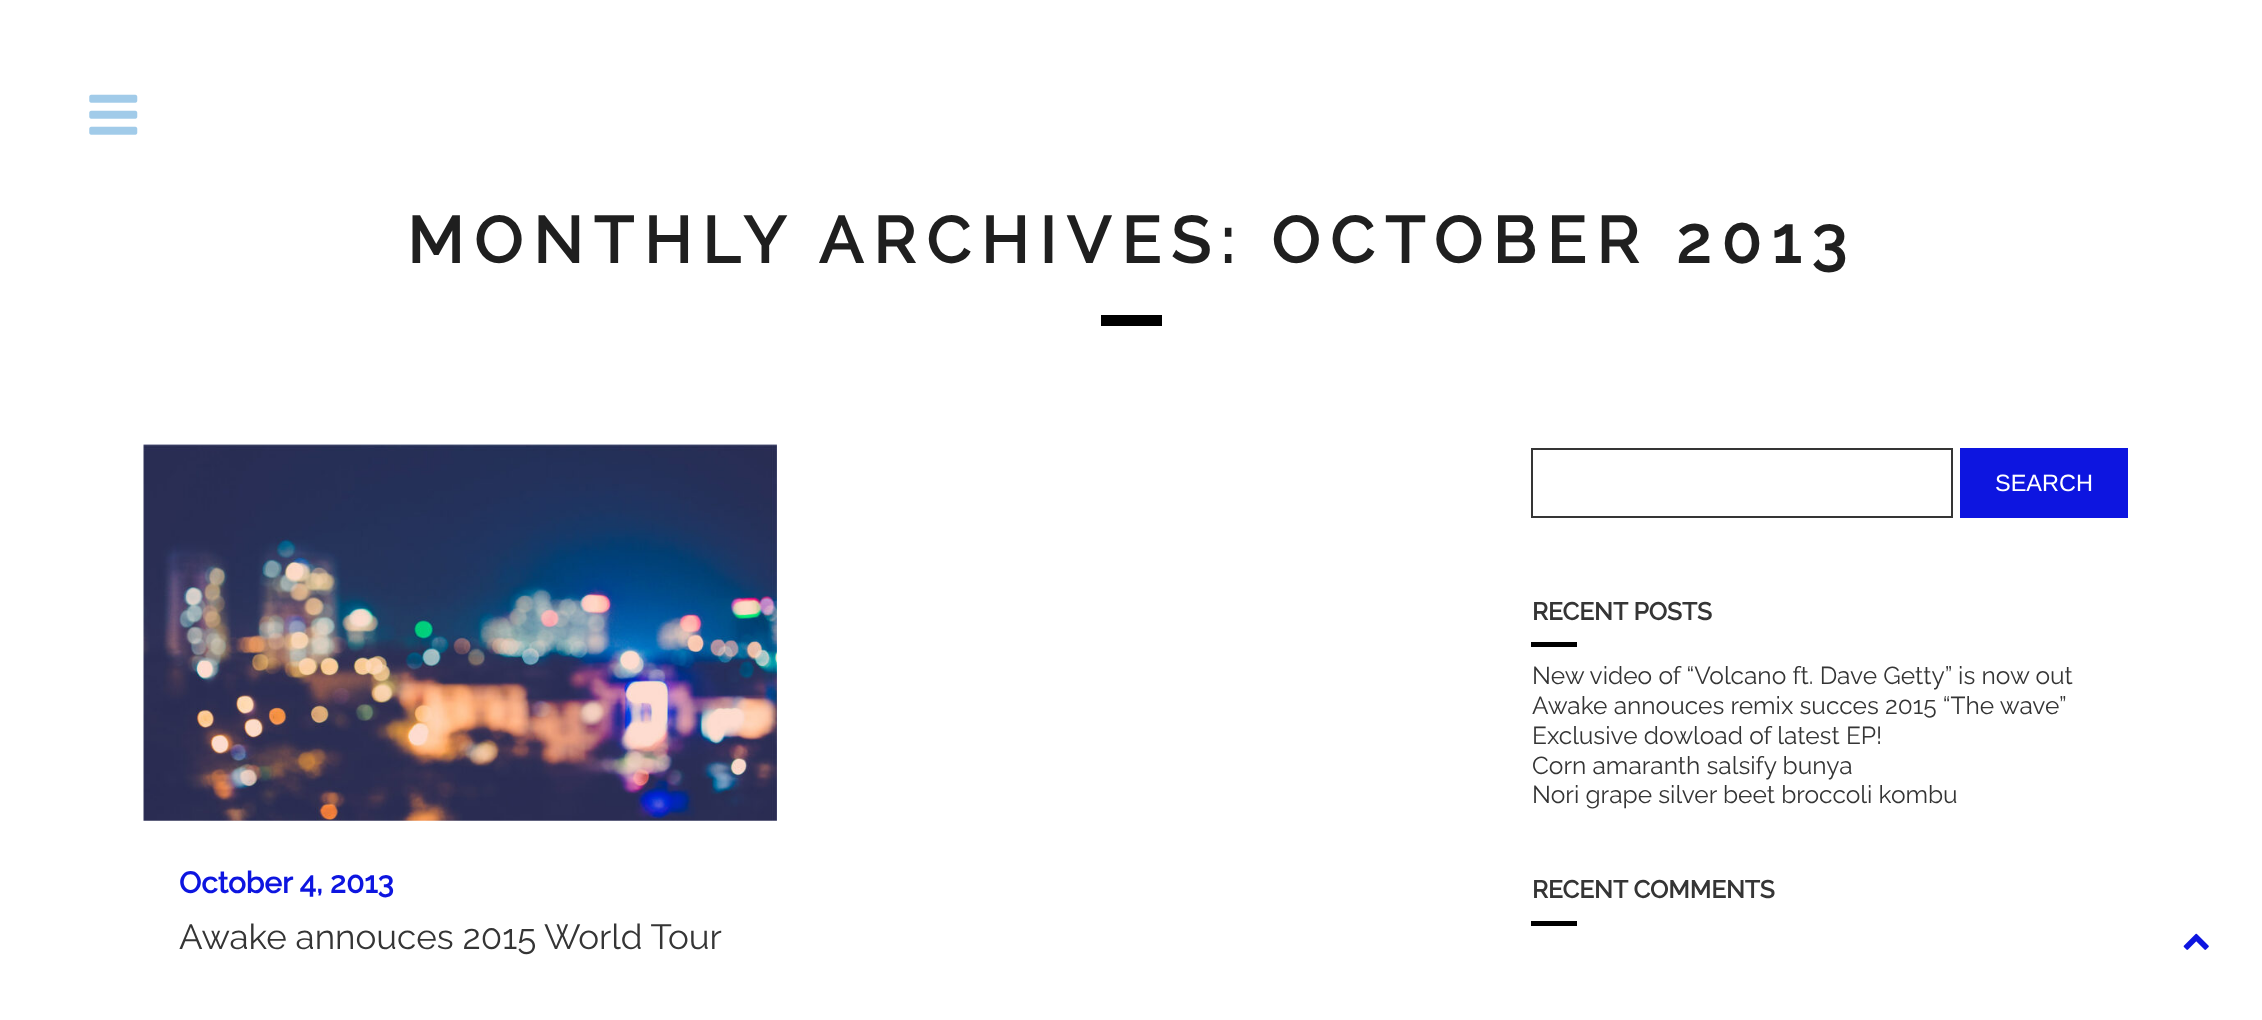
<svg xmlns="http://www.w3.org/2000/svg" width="2262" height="1020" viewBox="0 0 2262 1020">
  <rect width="100%" height="100%" fill="#ffffff"/>
  <image x="89" y="94" width="49" height="41" href="img1.png"/>
  <text x="407" y="263" font-family="Raleway" font-size="64.75" font-weight="bold" letter-spacing="10.5" fill="#1f1f1f">MONTHLY ARCHIVES: OCTOBER 2013</text>
  <rect x="1101" y="315" width="61" height="11" fill="#000000"/>
  <rect x="1532" y="449" width="420" height="68" fill="none" stroke="#353535" stroke-width="2"/>
  <rect x="1960" y="448" width="168" height="70" fill="#0d15e0"/>
  <text x="1995" y="491" font-family="Liberation Sans" font-size="23.5" fill="#ffffff">SEARCH</text>
  <text x="1532" y="620" font-family="Raleway" font-size="24.5" font-weight="bold" fill="#353535">RECENT POSTS</text>
  <rect x="1531" y="642" width="46" height="5" fill="#000000"/>
  <text x="1532" y="684" font-family="Raleway" font-size="24.5" font-weight="100" fill="#353535">New video of “Volcano ft. Dave Getty” is now out</text>
  <text x="1532" y="714" font-family="Raleway" font-size="24.5" font-weight="100" fill="#353535">Awake annouces remix succes 2015 “The wave”</text>
  <text x="1532" y="744" font-family="Raleway" font-size="24.5" font-weight="100" fill="#353535">Exclusive dowload of latest EP!</text>
  <text x="1532" y="774" font-family="Raleway" font-size="24.5" font-weight="100" fill="#353535">Corn amaranth salsify bunya</text>
  <text x="1532" y="803" font-family="Raleway" font-size="24.5" font-weight="100" fill="#353535">Nori grape silver beet broccoli kombu</text>
  <text x="1532" y="898" font-family="Raleway" font-size="24.5" font-weight="bold" fill="#353535">RECENT COMMENTS</text>
  <rect x="1531" y="921" width="46" height="5" fill="#000000"/>
  <image x="143" y="444" width="634" height="377" href="img2.png"/>
  <text x="179" y="893" font-family="Raleway" font-size="29.75" font-weight="bold" fill="#0d15e0">October 4, 2013</text>
  <text x="179" y="949" font-family="Raleway" font-size="35" font-weight="100" fill="#353535">Awake annouces 2015 World Tour</text>
  <image x="2183" y="933" width="26" height="17" href="img3.png"/>
</svg>
